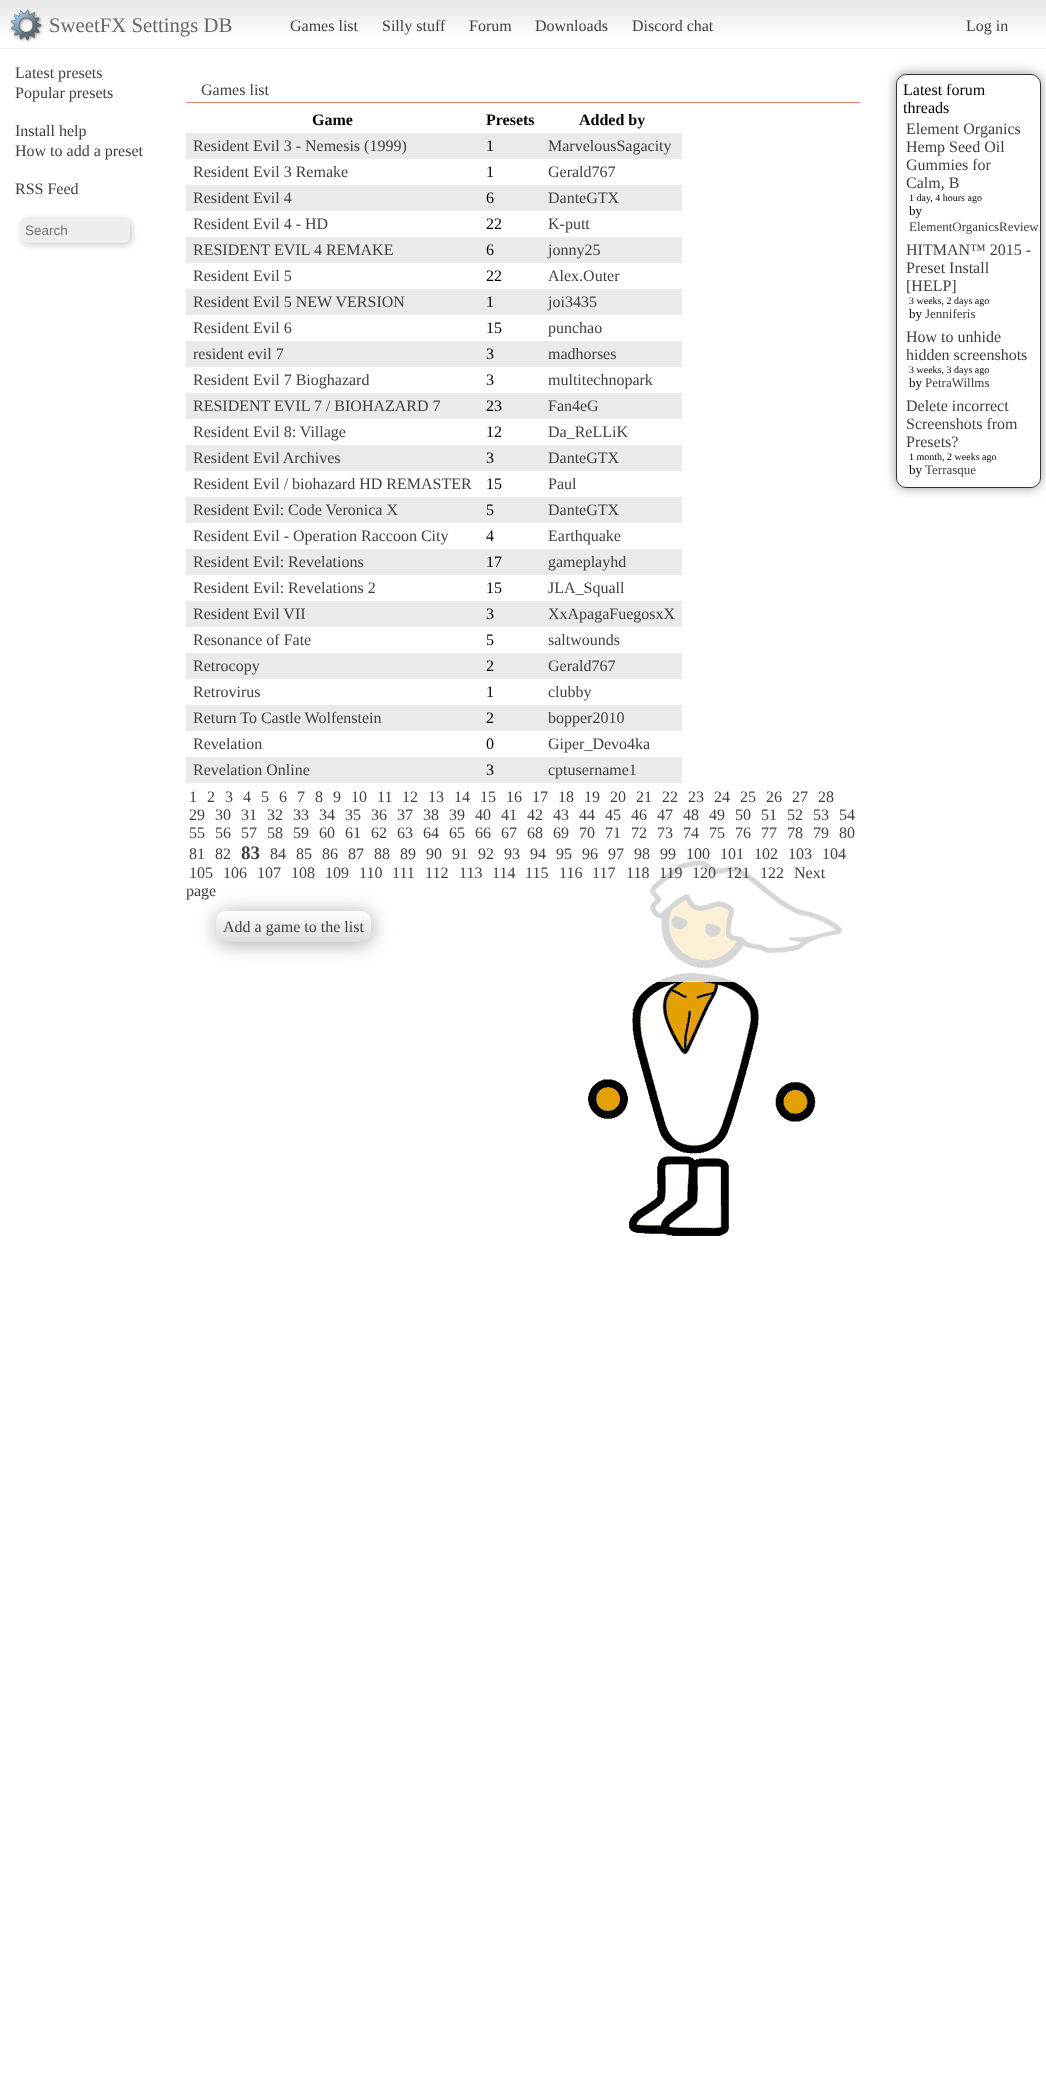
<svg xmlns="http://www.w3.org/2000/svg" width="1046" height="2098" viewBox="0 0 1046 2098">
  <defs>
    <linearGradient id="g1" gradientUnits="userSpaceOnUse" x1="523" y1="0" x2="523" y2="48"><stop offset="0" stop-color="#e6e6e6"/><stop offset="0.8" stop-color="#ffffff"/></linearGradient>
    <filter id="blur1" x="-50%" y="-200%" width="200%" height="500%"><feGaussianBlur stdDeviation="3"/></filter>
    <filter id="blur2" x="-50%" y="-200%" width="200%" height="500%"><feGaussianBlur stdDeviation="10"/></filter>
    <linearGradient id="g2" gradientUnits="userSpaceOnUse" x1="294" y1="911" x2="294" y2="942"><stop offset="0" stop-color="#ffffff"/><stop offset="1" stop-color="#dddddd"/></linearGradient>
    <clipPath id="clip1"><path d="M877 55H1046V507H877ZM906 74H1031C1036.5 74 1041 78.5 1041 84V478C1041 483.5 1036.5 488 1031 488H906C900.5 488 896 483.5 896 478V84C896 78.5 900.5 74 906 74Z" clip-rule="evenodd"/></clipPath>
    <filter id="blur3" x="-50%" y="-200%" width="200%" height="500%"><feGaussianBlur stdDeviation="6"/></filter>
  </defs>
  <rect width="100%" height="100%" fill="#ffffff"/>
  <image x="588" y="860" width="255" height="376" href="img1.png"/>
  <rect x="0" y="0" width="1046" height="35" fill="url(#g1)"/>
  <rect x="0" y="48" width="1046" height="1" fill="#f5f5f5"/>
  <image x="10" y="9" width="34" height="34" href="img2.png"/>
  <text x="49" y="32" font-family="Liberation Serif" font-size="20.75" fill="#686868">SweetFX Settings DB</text>
  <text x="290" y="31" font-family="Liberation Serif" font-size="16" fill="#3f3f3f">Games list</text>
  <text x="382" y="31" font-family="Liberation Serif" font-size="16" fill="#3f3f3f">Silly stuff</text>
  <text x="469" y="31" font-family="Liberation Serif" font-size="16" fill="#3f3f3f">Forum</text>
  <text x="535" y="31" font-family="Liberation Serif" font-size="16" fill="#3f3f3f">Downloads</text>
  <text x="632" y="31" font-family="Liberation Serif" font-size="16" fill="#3f3f3f">Discord chat</text>
  <text x="966" y="31" font-family="Liberation Serif" font-size="16" fill="#3f3f3f">Log in</text>
  <text x="15" y="78" font-family="Liberation Serif" font-size="16" fill="#3f3f3f">Latest presets</text>
  <text x="15" y="98" font-family="Liberation Serif" font-size="16" fill="#3f3f3f">Popular presets</text>
  <text x="15" y="136" font-family="Liberation Serif" font-size="16" fill="#3f3f3f">Install help</text>
  <text x="15" y="156" font-family="Liberation Serif" font-size="16" fill="#3f3f3f">How to add a preset</text>
  <text x="15" y="194" font-family="Liberation Serif" font-size="16" fill="#3f3f3f">RSS Feed</text>
  <rect x="22" y="220" width="110" height="25" rx="6" fill="#323232" fill-opacity="0.25" filter="url(#blur1)"/>
  <rect x="20" y="218" width="110" height="25" rx="6" fill="#eeeeee"/>
  <text x="25" y="235" font-family="Liberation Sans" font-size="13.5" fill="#757575">Search</text>
  <rect x="650" y="860" width="193" height="122" fill="#ffffff" fill-opacity="0.84"/>
  <rect x="186" y="102" width="674" height="1" fill="#f0806a"/>
  <text x="201" y="95" font-family="Liberation Serif" font-size="16" fill="#3f3f3f">Games list</text>
  <text x="312" y="125" font-family="Liberation Serif" font-size="16" font-weight="bold" fill="#000000">Game</text>
  <text x="486" y="125" font-family="Liberation Serif" font-size="16" font-weight="bold" fill="#000000">Presets</text>
  <text x="579" y="125" font-family="Liberation Serif" font-size="16" font-weight="bold" fill="#000000">Added by</text>
  <rect x="186" y="133" width="496" height="26" fill="#eaeaea"/>
  <text x="193" y="151" font-family="Liberation Serif" font-size="16" fill="#3f3f3f">Resident Evil 3 - Nemesis (1999)</text>
  <text x="486" y="151" font-family="Liberation Serif" font-size="16" fill="#000000">1</text>
  <text x="548" y="151" font-family="Liberation Serif" font-size="16" fill="#3f3f3f">MarvelousSagacity</text>
  <text x="193" y="177" font-family="Liberation Serif" font-size="16" fill="#3f3f3f">Resident Evil 3 Remake</text>
  <text x="486" y="177" font-family="Liberation Serif" font-size="16" fill="#000000">1</text>
  <text x="548" y="177" font-family="Liberation Serif" font-size="16" fill="#3f3f3f">Gerald767</text>
  <rect x="186" y="185" width="496" height="26" fill="#eaeaea"/>
  <text x="193" y="203" font-family="Liberation Serif" font-size="16" fill="#3f3f3f">Resident Evil 4</text>
  <text x="486" y="203" font-family="Liberation Serif" font-size="16" fill="#000000">6</text>
  <text x="548" y="203" font-family="Liberation Serif" font-size="16" fill="#3f3f3f">DanteGTX</text>
  <text x="193" y="229" font-family="Liberation Serif" font-size="16" fill="#3f3f3f">Resident Evil 4 - HD</text>
  <text x="486" y="229" font-family="Liberation Serif" font-size="16" fill="#000000">22</text>
  <text x="548" y="229" font-family="Liberation Serif" font-size="16" fill="#3f3f3f">K-putt</text>
  <rect x="186" y="237" width="496" height="26" fill="#eaeaea"/>
  <text x="193" y="255" font-family="Liberation Serif" font-size="16" fill="#3f3f3f">RESIDENT EVIL 4 REMAKE</text>
  <text x="486" y="255" font-family="Liberation Serif" font-size="16" fill="#000000">6</text>
  <text x="548" y="255" font-family="Liberation Serif" font-size="16" fill="#3f3f3f">jonny25</text>
  <text x="193" y="281" font-family="Liberation Serif" font-size="16" fill="#3f3f3f">Resident Evil 5</text>
  <text x="486" y="281" font-family="Liberation Serif" font-size="16" fill="#000000">22</text>
  <text x="548" y="281" font-family="Liberation Serif" font-size="16" fill="#3f3f3f">Alex.Outer</text>
  <rect x="186" y="289" width="496" height="26" fill="#eaeaea"/>
  <text x="193" y="307" font-family="Liberation Serif" font-size="16" fill="#3f3f3f">Resident Evil 5 NEW VERSION</text>
  <text x="486" y="307" font-family="Liberation Serif" font-size="16" fill="#000000">1</text>
  <text x="548" y="307" font-family="Liberation Serif" font-size="16" fill="#3f3f3f">joi3435</text>
  <text x="193" y="333" font-family="Liberation Serif" font-size="16" fill="#3f3f3f">Resident Evil 6</text>
  <text x="486" y="333" font-family="Liberation Serif" font-size="16" fill="#000000">15</text>
  <text x="548" y="333" font-family="Liberation Serif" font-size="16" fill="#3f3f3f">punchao</text>
  <rect x="186" y="341" width="496" height="26" fill="#eaeaea"/>
  <text x="193" y="359" font-family="Liberation Serif" font-size="16" fill="#3f3f3f">resident evil 7</text>
  <text x="486" y="359" font-family="Liberation Serif" font-size="16" fill="#000000">3</text>
  <text x="548" y="359" font-family="Liberation Serif" font-size="16" fill="#3f3f3f">madhorses</text>
  <text x="193" y="385" font-family="Liberation Serif" font-size="16" fill="#3f3f3f">Resident Evil 7 Bioghazard</text>
  <text x="486" y="385" font-family="Liberation Serif" font-size="16" fill="#000000">3</text>
  <text x="548" y="385" font-family="Liberation Serif" font-size="16" fill="#3f3f3f">multitechnopark</text>
  <rect x="186" y="393" width="496" height="26" fill="#eaeaea"/>
  <text x="193" y="411" font-family="Liberation Serif" font-size="16" fill="#3f3f3f">RESIDENT EVIL 7 / BIOHAZARD 7</text>
  <text x="486" y="411" font-family="Liberation Serif" font-size="16" fill="#000000">23</text>
  <text x="548" y="411" font-family="Liberation Serif" font-size="16" fill="#3f3f3f">Fan4eG</text>
  <text x="193" y="437" font-family="Liberation Serif" font-size="16" fill="#3f3f3f">Resident Evil 8: Village</text>
  <text x="486" y="437" font-family="Liberation Serif" font-size="16" fill="#000000">12</text>
  <text x="548" y="437" font-family="Liberation Serif" font-size="16" fill="#3f3f3f">Da_ReLLiK</text>
  <rect x="186" y="445" width="496" height="26" fill="#eaeaea"/>
  <text x="193" y="463" font-family="Liberation Serif" font-size="16" fill="#3f3f3f">Resident Evil Archives</text>
  <text x="486" y="463" font-family="Liberation Serif" font-size="16" fill="#000000">3</text>
  <text x="548" y="463" font-family="Liberation Serif" font-size="16" fill="#3f3f3f">DanteGTX</text>
  <text x="193" y="489" font-family="Liberation Serif" font-size="16" fill="#3f3f3f">Resident Evil / biohazard HD REMASTER</text>
  <text x="486" y="489" font-family="Liberation Serif" font-size="16" fill="#000000">15</text>
  <text x="548" y="489" font-family="Liberation Serif" font-size="16" fill="#3f3f3f">Paul</text>
  <rect x="186" y="497" width="496" height="26" fill="#eaeaea"/>
  <text x="193" y="515" font-family="Liberation Serif" font-size="16" fill="#3f3f3f">Resident Evil: Code Veronica X</text>
  <text x="486" y="515" font-family="Liberation Serif" font-size="16" fill="#000000">5</text>
  <text x="548" y="515" font-family="Liberation Serif" font-size="16" fill="#3f3f3f">DanteGTX</text>
  <text x="193" y="541" font-family="Liberation Serif" font-size="16" fill="#3f3f3f">Resident Evil - Operation Raccoon City</text>
  <text x="486" y="541" font-family="Liberation Serif" font-size="16" fill="#000000">4</text>
  <text x="548" y="541" font-family="Liberation Serif" font-size="16" fill="#3f3f3f">Earthquake</text>
  <rect x="186" y="549" width="496" height="26" fill="#eaeaea"/>
  <text x="193" y="567" font-family="Liberation Serif" font-size="16" fill="#3f3f3f">Resident Evil: Revelations</text>
  <text x="486" y="567" font-family="Liberation Serif" font-size="16" fill="#000000">17</text>
  <text x="548" y="567" font-family="Liberation Serif" font-size="16" fill="#3f3f3f">gameplayhd</text>
  <text x="193" y="593" font-family="Liberation Serif" font-size="16" fill="#3f3f3f">Resident Evil: Revelations 2</text>
  <text x="486" y="593" font-family="Liberation Serif" font-size="16" fill="#000000">15</text>
  <text x="548" y="593" font-family="Liberation Serif" font-size="16" fill="#3f3f3f">JLA_Squall</text>
  <rect x="186" y="601" width="496" height="26" fill="#eaeaea"/>
  <text x="193" y="619" font-family="Liberation Serif" font-size="16" fill="#3f3f3f">Resident Evil VII</text>
  <text x="486" y="619" font-family="Liberation Serif" font-size="16" fill="#000000">3</text>
  <text x="548" y="619" font-family="Liberation Serif" font-size="16" fill="#3f3f3f">XxApagaFuegosxX</text>
  <text x="193" y="645" font-family="Liberation Serif" font-size="16" fill="#3f3f3f">Resonance of Fate</text>
  <text x="486" y="645" font-family="Liberation Serif" font-size="16" fill="#000000">5</text>
  <text x="548" y="645" font-family="Liberation Serif" font-size="16" fill="#3f3f3f">saltwounds</text>
  <rect x="186" y="653" width="496" height="26" fill="#eaeaea"/>
  <text x="193" y="671" font-family="Liberation Serif" font-size="16" fill="#3f3f3f">Retrocopy</text>
  <text x="486" y="671" font-family="Liberation Serif" font-size="16" fill="#000000">2</text>
  <text x="548" y="671" font-family="Liberation Serif" font-size="16" fill="#3f3f3f">Gerald767</text>
  <text x="193" y="697" font-family="Liberation Serif" font-size="16" fill="#3f3f3f">Retrovirus</text>
  <text x="486" y="697" font-family="Liberation Serif" font-size="16" fill="#000000">1</text>
  <text x="548" y="697" font-family="Liberation Serif" font-size="16" fill="#3f3f3f">clubby</text>
  <rect x="186" y="705" width="496" height="26" fill="#eaeaea"/>
  <text x="193" y="723" font-family="Liberation Serif" font-size="16" fill="#3f3f3f">Return To Castle Wolfenstein</text>
  <text x="486" y="723" font-family="Liberation Serif" font-size="16" fill="#000000">2</text>
  <text x="548" y="723" font-family="Liberation Serif" font-size="16" fill="#3f3f3f">bopper2010</text>
  <text x="193" y="749" font-family="Liberation Serif" font-size="16" fill="#3f3f3f">Revelation</text>
  <text x="486" y="749" font-family="Liberation Serif" font-size="16" fill="#000000">0</text>
  <text x="548" y="749" font-family="Liberation Serif" font-size="16" fill="#3f3f3f">Giper_Devo4ka</text>
  <rect x="186" y="757" width="496" height="26" fill="#eaeaea"/>
  <text x="193" y="775" font-family="Liberation Serif" font-size="16" fill="#3f3f3f">Revelation Online</text>
  <text x="486" y="775" font-family="Liberation Serif" font-size="16" fill="#000000">3</text>
  <text x="548" y="775" font-family="Liberation Serif" font-size="16" fill="#3f3f3f">cptusername1</text>
  <text x="189" y="802" font-family="Liberation Serif" font-size="16" fill="#3f3f3f">1</text>
  <text x="207" y="802" font-family="Liberation Serif" font-size="16" fill="#3f3f3f">2</text>
  <text x="225" y="802" font-family="Liberation Serif" font-size="16" fill="#3f3f3f">3</text>
  <text x="243" y="802" font-family="Liberation Serif" font-size="16" fill="#3f3f3f">4</text>
  <text x="261" y="802" font-family="Liberation Serif" font-size="16" fill="#3f3f3f">5</text>
  <text x="279" y="802" font-family="Liberation Serif" font-size="16" fill="#3f3f3f">6</text>
  <text x="297" y="802" font-family="Liberation Serif" font-size="16" fill="#3f3f3f">7</text>
  <text x="315" y="802" font-family="Liberation Serif" font-size="16" fill="#3f3f3f">8</text>
  <text x="333" y="802" font-family="Liberation Serif" font-size="16" fill="#3f3f3f">9</text>
  <text x="351" y="802" font-family="Liberation Serif" font-size="16" fill="#3f3f3f">10</text>
  <text x="377" y="802" font-family="Liberation Serif" font-size="16" fill="#3f3f3f">11</text>
  <text x="402" y="802" font-family="Liberation Serif" font-size="16" fill="#3f3f3f">12</text>
  <text x="428" y="802" font-family="Liberation Serif" font-size="16" fill="#3f3f3f">13</text>
  <text x="454" y="802" font-family="Liberation Serif" font-size="16" fill="#3f3f3f">14</text>
  <text x="480" y="802" font-family="Liberation Serif" font-size="16" fill="#3f3f3f">15</text>
  <text x="506" y="802" font-family="Liberation Serif" font-size="16" fill="#3f3f3f">16</text>
  <text x="532" y="802" font-family="Liberation Serif" font-size="16" fill="#3f3f3f">17</text>
  <text x="558" y="802" font-family="Liberation Serif" font-size="16" fill="#3f3f3f">18</text>
  <text x="584" y="802" font-family="Liberation Serif" font-size="16" fill="#3f3f3f">19</text>
  <text x="610" y="802" font-family="Liberation Serif" font-size="16" fill="#3f3f3f">20</text>
  <text x="636" y="802" font-family="Liberation Serif" font-size="16" fill="#3f3f3f">21</text>
  <text x="662" y="802" font-family="Liberation Serif" font-size="16" fill="#3f3f3f">22</text>
  <text x="688" y="802" font-family="Liberation Serif" font-size="16" fill="#3f3f3f">23</text>
  <text x="714" y="802" font-family="Liberation Serif" font-size="16" fill="#3f3f3f">24</text>
  <text x="740" y="802" font-family="Liberation Serif" font-size="16" fill="#3f3f3f">25</text>
  <text x="766" y="802" font-family="Liberation Serif" font-size="16" fill="#3f3f3f">26</text>
  <text x="792" y="802" font-family="Liberation Serif" font-size="16" fill="#3f3f3f">27</text>
  <text x="818" y="802" font-family="Liberation Serif" font-size="16" fill="#3f3f3f">28</text>
  <text x="189" y="820" font-family="Liberation Serif" font-size="16" fill="#3f3f3f">29</text>
  <text x="215" y="820" font-family="Liberation Serif" font-size="16" fill="#3f3f3f">30</text>
  <text x="241" y="820" font-family="Liberation Serif" font-size="16" fill="#3f3f3f">31</text>
  <text x="267" y="820" font-family="Liberation Serif" font-size="16" fill="#3f3f3f">32</text>
  <text x="293" y="820" font-family="Liberation Serif" font-size="16" fill="#3f3f3f">33</text>
  <text x="319" y="820" font-family="Liberation Serif" font-size="16" fill="#3f3f3f">34</text>
  <text x="345" y="820" font-family="Liberation Serif" font-size="16" fill="#3f3f3f">35</text>
  <text x="371" y="820" font-family="Liberation Serif" font-size="16" fill="#3f3f3f">36</text>
  <text x="397" y="820" font-family="Liberation Serif" font-size="16" fill="#3f3f3f">37</text>
  <text x="423" y="820" font-family="Liberation Serif" font-size="16" fill="#3f3f3f">38</text>
  <text x="449" y="820" font-family="Liberation Serif" font-size="16" fill="#3f3f3f">39</text>
  <text x="475" y="820" font-family="Liberation Serif" font-size="16" fill="#3f3f3f">40</text>
  <text x="501" y="820" font-family="Liberation Serif" font-size="16" fill="#3f3f3f">41</text>
  <text x="527" y="820" font-family="Liberation Serif" font-size="16" fill="#3f3f3f">42</text>
  <text x="553" y="820" font-family="Liberation Serif" font-size="16" fill="#3f3f3f">43</text>
  <text x="579" y="820" font-family="Liberation Serif" font-size="16" fill="#3f3f3f">44</text>
  <text x="605" y="820" font-family="Liberation Serif" font-size="16" fill="#3f3f3f">45</text>
  <text x="631" y="820" font-family="Liberation Serif" font-size="16" fill="#3f3f3f">46</text>
  <text x="657" y="820" font-family="Liberation Serif" font-size="16" fill="#3f3f3f">47</text>
  <text x="683" y="820" font-family="Liberation Serif" font-size="16" fill="#3f3f3f">48</text>
  <text x="709" y="820" font-family="Liberation Serif" font-size="16" fill="#3f3f3f">49</text>
  <text x="735" y="820" font-family="Liberation Serif" font-size="16" fill="#3f3f3f">50</text>
  <text x="761" y="820" font-family="Liberation Serif" font-size="16" fill="#3f3f3f">51</text>
  <text x="787" y="820" font-family="Liberation Serif" font-size="16" fill="#3f3f3f">52</text>
  <text x="813" y="820" font-family="Liberation Serif" font-size="16" fill="#3f3f3f">53</text>
  <text x="839" y="820" font-family="Liberation Serif" font-size="16" fill="#3f3f3f">54</text>
  <text x="189" y="838" font-family="Liberation Serif" font-size="16" fill="#3f3f3f">55</text>
  <text x="215" y="838" font-family="Liberation Serif" font-size="16" fill="#3f3f3f">56</text>
  <text x="241" y="838" font-family="Liberation Serif" font-size="16" fill="#3f3f3f">57</text>
  <text x="267" y="838" font-family="Liberation Serif" font-size="16" fill="#3f3f3f">58</text>
  <text x="293" y="838" font-family="Liberation Serif" font-size="16" fill="#3f3f3f">59</text>
  <text x="319" y="838" font-family="Liberation Serif" font-size="16" fill="#3f3f3f">60</text>
  <text x="345" y="838" font-family="Liberation Serif" font-size="16" fill="#3f3f3f">61</text>
  <text x="371" y="838" font-family="Liberation Serif" font-size="16" fill="#3f3f3f">62</text>
  <text x="397" y="838" font-family="Liberation Serif" font-size="16" fill="#3f3f3f">63</text>
  <text x="423" y="838" font-family="Liberation Serif" font-size="16" fill="#3f3f3f">64</text>
  <text x="449" y="838" font-family="Liberation Serif" font-size="16" fill="#3f3f3f">65</text>
  <text x="475" y="838" font-family="Liberation Serif" font-size="16" fill="#3f3f3f">66</text>
  <text x="501" y="838" font-family="Liberation Serif" font-size="16" fill="#3f3f3f">67</text>
  <text x="527" y="838" font-family="Liberation Serif" font-size="16" fill="#3f3f3f">68</text>
  <text x="553" y="838" font-family="Liberation Serif" font-size="16" fill="#3f3f3f">69</text>
  <text x="579" y="838" font-family="Liberation Serif" font-size="16" fill="#3f3f3f">70</text>
  <text x="605" y="838" font-family="Liberation Serif" font-size="16" fill="#3f3f3f">71</text>
  <text x="631" y="838" font-family="Liberation Serif" font-size="16" fill="#3f3f3f">72</text>
  <text x="657" y="838" font-family="Liberation Serif" font-size="16" fill="#3f3f3f">73</text>
  <text x="683" y="838" font-family="Liberation Serif" font-size="16" fill="#3f3f3f">74</text>
  <text x="709" y="838" font-family="Liberation Serif" font-size="16" fill="#3f3f3f">75</text>
  <text x="735" y="838" font-family="Liberation Serif" font-size="16" fill="#3f3f3f">76</text>
  <text x="761" y="838" font-family="Liberation Serif" font-size="16" fill="#3f3f3f">77</text>
  <text x="787" y="838" font-family="Liberation Serif" font-size="16" fill="#3f3f3f">78</text>
  <text x="813" y="838" font-family="Liberation Serif" font-size="16" fill="#3f3f3f">79</text>
  <text x="839" y="838" font-family="Liberation Serif" font-size="16" fill="#3f3f3f">80</text>
  <text x="189" y="859" font-family="Liberation Serif" font-size="16" fill="#3f3f3f">81</text>
  <text x="215" y="859" font-family="Liberation Serif" font-size="16" fill="#3f3f3f">82</text>
  <text x="241" y="859" font-family="Liberation Serif" font-size="19" font-weight="bold" fill="#3f3f3f">83</text>
  <text x="270" y="859" font-family="Liberation Serif" font-size="16" fill="#3f3f3f">84</text>
  <text x="296" y="859" font-family="Liberation Serif" font-size="16" fill="#3f3f3f">85</text>
  <text x="322" y="859" font-family="Liberation Serif" font-size="16" fill="#3f3f3f">86</text>
  <text x="348" y="859" font-family="Liberation Serif" font-size="16" fill="#3f3f3f">87</text>
  <text x="374" y="859" font-family="Liberation Serif" font-size="16" fill="#3f3f3f">88</text>
  <text x="400" y="859" font-family="Liberation Serif" font-size="16" fill="#3f3f3f">89</text>
  <text x="426" y="859" font-family="Liberation Serif" font-size="16" fill="#3f3f3f">90</text>
  <text x="452" y="859" font-family="Liberation Serif" font-size="16" fill="#3f3f3f">91</text>
  <text x="478" y="859" font-family="Liberation Serif" font-size="16" fill="#3f3f3f">92</text>
  <text x="504" y="859" font-family="Liberation Serif" font-size="16" fill="#3f3f3f">93</text>
  <text x="530" y="859" font-family="Liberation Serif" font-size="16" fill="#3f3f3f">94</text>
  <text x="556" y="859" font-family="Liberation Serif" font-size="16" fill="#3f3f3f">95</text>
  <text x="582" y="859" font-family="Liberation Serif" font-size="16" fill="#3f3f3f">96</text>
  <text x="608" y="859" font-family="Liberation Serif" font-size="16" fill="#3f3f3f">97</text>
  <text x="634" y="859" font-family="Liberation Serif" font-size="16" fill="#3f3f3f">98</text>
  <text x="660" y="859" font-family="Liberation Serif" font-size="16" fill="#3f3f3f">99</text>
  <text x="686" y="859" font-family="Liberation Serif" font-size="16" fill="#3f3f3f">100</text>
  <text x="720" y="859" font-family="Liberation Serif" font-size="16" fill="#3f3f3f">101</text>
  <text x="754" y="859" font-family="Liberation Serif" font-size="16" fill="#3f3f3f">102</text>
  <text x="788" y="859" font-family="Liberation Serif" font-size="16" fill="#3f3f3f">103</text>
  <text x="822" y="859" font-family="Liberation Serif" font-size="16" fill="#3f3f3f">104</text>
  <text x="189" y="878" font-family="Liberation Serif" font-size="16" fill="#3f3f3f">105</text>
  <text x="223" y="878" font-family="Liberation Serif" font-size="16" fill="#3f3f3f">106</text>
  <text x="257" y="878" font-family="Liberation Serif" font-size="16" fill="#3f3f3f">107</text>
  <text x="291" y="878" font-family="Liberation Serif" font-size="16" fill="#3f3f3f">108</text>
  <text x="325" y="878" font-family="Liberation Serif" font-size="16" fill="#3f3f3f">109</text>
  <text x="359" y="878" font-family="Liberation Serif" font-size="16" fill="#3f3f3f">110</text>
  <text x="392" y="878" font-family="Liberation Serif" font-size="16" fill="#3f3f3f">111</text>
  <text x="425" y="878" font-family="Liberation Serif" font-size="16" fill="#3f3f3f">112</text>
  <text x="459" y="878" font-family="Liberation Serif" font-size="16" fill="#3f3f3f">113</text>
  <text x="492" y="878" font-family="Liberation Serif" font-size="16" fill="#3f3f3f">114</text>
  <text x="525" y="878" font-family="Liberation Serif" font-size="16" fill="#3f3f3f">115</text>
  <text x="559" y="878" font-family="Liberation Serif" font-size="16" fill="#3f3f3f">116</text>
  <text x="592" y="878" font-family="Liberation Serif" font-size="16" fill="#3f3f3f">117</text>
  <text x="626" y="878" font-family="Liberation Serif" font-size="16" fill="#3f3f3f">118</text>
  <text x="659" y="878" font-family="Liberation Serif" font-size="16" fill="#3f3f3f">119</text>
  <text x="692" y="878" font-family="Liberation Serif" font-size="16" fill="#3f3f3f">120</text>
  <text x="726" y="878" font-family="Liberation Serif" font-size="16" fill="#3f3f3f">121</text>
  <text x="760" y="878" font-family="Liberation Serif" font-size="16" fill="#3f3f3f">122</text>
  <text x="794" y="878" font-family="Liberation Serif" font-size="16" fill="#3f3f3f">Next</text>
  <text x="186" y="896" font-family="Liberation Serif" font-size="16" fill="#3f3f3f">page</text>
  <rect x="217" y="913" width="155" height="31" rx="10" fill="#000000" fill-opacity="0.33" filter="url(#blur2)"/>
  <rect x="216" y="911" width="155" height="31" rx="10" fill="url(#g2)"/>
  <text x="223" y="932" font-family="Liberation Serif" font-size="16" fill="#3f3f3f">Add a game to the list</text>
  <g clip-path="url(#clip1)">
    <rect x="896" y="74" width="145" height="414" rx="10" fill="#999999" filter="url(#blur3)"/>
  </g>
  <rect x="896.5" y="74.5" width="144" height="413" rx="9.5" fill="none" stroke="#333333"/>
  <text x="903" y="95" font-family="Liberation Serif" font-size="16" fill="#000000">Latest forum</text>
  <text x="903" y="113" font-family="Liberation Serif" font-size="16" fill="#000000">threads</text>
  <text x="906" y="134" font-family="Liberation Serif" font-size="16" fill="#3f3f3f">Element Organics</text>
  <text x="906" y="152" font-family="Liberation Serif" font-size="16" fill="#3f3f3f">Hemp Seed Oil</text>
  <text x="906" y="170" font-family="Liberation Serif" font-size="16" fill="#3f3f3f">Gummies for</text>
  <text x="906" y="188" font-family="Liberation Serif" font-size="16" fill="#3f3f3f">Calm, B</text>
  <text x="909" y="201" font-family="Liberation Serif" font-size="10" fill="#000000">1 day, 4 hours ago</text>
  <text x="909" y="215" font-family="Liberation Serif" font-size="13" fill="#000000">by</text>
  <text x="909" y="231" font-family="Liberation Serif" font-size="13" fill="#3f3f3f">ElementOrganicsReview</text>
  <text x="906" y="255" font-family="Liberation Serif" font-size="16" fill="#3f3f3f">HITMAN™ 2015 -</text>
  <text x="906" y="273" font-family="Liberation Serif" font-size="16" fill="#3f3f3f">Preset Install</text>
  <text x="906" y="291" font-family="Liberation Serif" font-size="16" fill="#3f3f3f">[HELP]</text>
  <text x="909" y="304" font-family="Liberation Serif" font-size="10" fill="#000000">3 weeks, 2 days ago</text>
  <text x="909" y="318" font-family="Liberation Serif" font-size="13" fill="#000000">by</text>
  <text x="925" y="318" font-family="Liberation Serif" font-size="13" fill="#3f3f3f">Jenniferis</text>
  <text x="906" y="342" font-family="Liberation Serif" font-size="16" fill="#3f3f3f">How to unhide</text>
  <text x="906" y="360" font-family="Liberation Serif" font-size="16" fill="#3f3f3f">hidden screenshots</text>
  <text x="909" y="373" font-family="Liberation Serif" font-size="10" fill="#000000">3 weeks, 3 days ago</text>
  <text x="909" y="387" font-family="Liberation Serif" font-size="13" fill="#000000">by</text>
  <text x="925" y="387" font-family="Liberation Serif" font-size="13" fill="#3f3f3f">PetraWillms</text>
  <text x="906" y="411" font-family="Liberation Serif" font-size="16" fill="#3f3f3f">Delete incorrect</text>
  <text x="906" y="429" font-family="Liberation Serif" font-size="16" fill="#3f3f3f">Screenshots from</text>
  <text x="906" y="447" font-family="Liberation Serif" font-size="16" fill="#3f3f3f">Presets?</text>
  <text x="909" y="460" font-family="Liberation Serif" font-size="10" fill="#000000">1 month, 2 weeks ago</text>
  <text x="909" y="474" font-family="Liberation Serif" font-size="13" fill="#000000">by</text>
  <text x="925" y="474" font-family="Liberation Serif" font-size="13" fill="#3f3f3f">Terrasque</text>
</svg>
